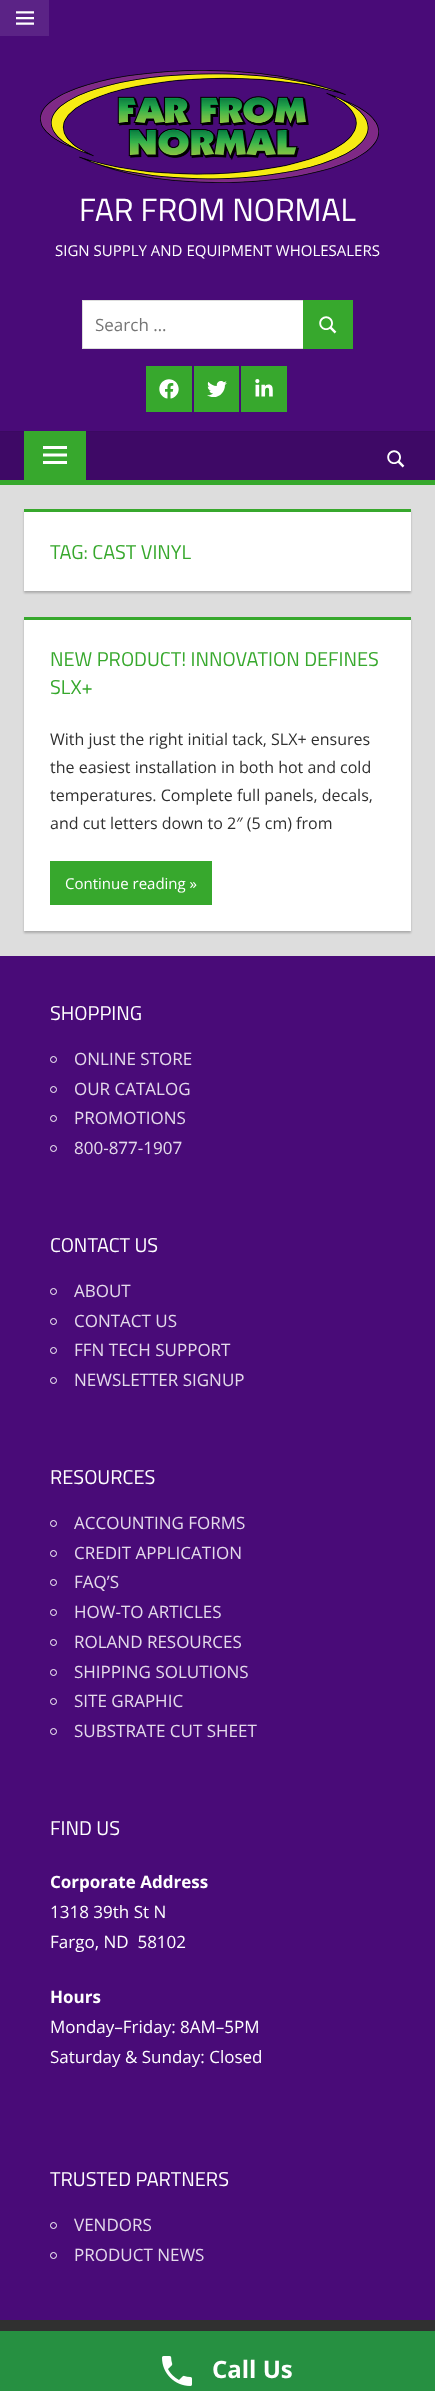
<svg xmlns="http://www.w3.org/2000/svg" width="435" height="2391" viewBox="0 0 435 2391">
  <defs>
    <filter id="blur1" x="-50%" y="-200%" width="200%" height="500%"><feGaussianBlur stdDeviation="1"/></filter>
  </defs>
  <rect width="100%" height="100%" fill="#dddddd"/>
  <rect x="49" y="0" width="386" height="36" fill="#490b78"/>
  <rect x="0" y="0" width="49" height="36" fill="#5b2386"/>
  <image x="16" y="11" width="18" height="14" href="img1.png"/>
  <rect x="0" y="36" width="435" height="395" fill="#490b78"/>
  <image x="40" y="70" width="339" height="113" href="img2.png"/>
  <text x="79" y="221" font-family="Titillium Web" font-size="32" fill="#ffffff">FAR FROM NORMAL</text>
  <text x="55" y="256" font-family="Open Sans" font-size="15" fill="#ffffff">SIGN SUPPLY AND EQUIPMENT WHOLESALERS</text>
  <rect x="82.5" y="300.5" width="221" height="48" fill="#ffffff" stroke="#dddddd"/>
  <text x="95" y="331" font-family="Open Sans" font-size="17" fill="#757575">Search …</text>
  <rect x="303" y="300" width="50" height="49" fill="#37a82d"/>
  <image x="319" y="316" width="18" height="18" href="img3.png"/>
  <rect x="146" y="366" width="46" height="46" fill="#37a82d"/>
  <image x="159" y="379" width="20" height="20" href="img4.png"/>
  <rect x="194" y="366" width="45" height="46" fill="#37a82d"/>
  <image x="207" y="381" width="20" height="16" href="img5.png"/>
  <rect x="241" y="366" width="46" height="46" fill="#37a82d"/>
  <image x="255" y="379" width="18" height="18" href="img6.png"/>
  <rect x="0" y="432" width="435" height="48" fill="#3e0966"/>
  <rect x="0" y="431" width="435" height="1" fill="#3b0961"/>
  <rect x="0" y="480" width="435" height="5" fill="#37a82d"/>
  <rect x="24" y="431" width="62" height="49" fill="#37a82d"/>
  <image x="43" y="446" width="24" height="18" href="img7.png"/>
  <image x="387" y="450" width="18" height="18" href="img8.png"/>
  <rect x="24" y="511" width="387" height="82" fill="#aaaaaa" filter="url(#blur1)"/>
  <rect x="24" y="512" width="387" height="79" fill="#ffffff"/>
  <rect x="24" y="509" width="387" height="3" fill="#37a82d"/>
  <text x="50" y="559" font-family="Titillium Web" font-size="20" fill="#37a82d">TAG: CAST VINYL</text>
  <rect x="24" y="619" width="387" height="314" fill="#aaaaaa" filter="url(#blur1)"/>
  <rect x="24" y="620" width="387" height="311" fill="#ffffff"/>
  <rect x="24" y="617" width="387" height="3" fill="#37a82d"/>
  <text x="50" y="666" font-family="Titillium Web" font-size="20" fill="#37a82d">NEW PRODUCT! INNOVATION DEFINES</text>
  <text x="50" y="694" font-family="Titillium Web" font-size="20" fill="#37a82d">SLX+</text>
  <text x="50" y="745" font-family="Open Sans" font-size="16" fill="#303030">With just the right initial tack, SLX+ ensures</text>
  <text x="50" y="773" font-family="Open Sans" font-size="16" fill="#303030">the easiest installation in both hot and cold</text>
  <text x="50" y="801" font-family="Open Sans" font-size="16" fill="#303030">temperatures. Complete full panels, decals,</text>
  <text x="50" y="829" font-family="Open Sans" font-size="16" fill="#303030">and cut letters down to 2″ (5 cm) from</text>
  <rect x="50" y="861" width="162" height="44" fill="#37a82d"/>
  <text x="65" y="889" font-family="Open Sans" font-size="15" fill="#ffffff">Continue reading »</text>
  <rect x="0" y="956" width="435" height="1364" fill="#490b78"/>
  <text x="50" y="1020" font-family="Titillium Web" font-size="20" fill="#ffffff">SHOPPING</text>
  <circle cx="53.5" cy="1059.5" r="3" fill="none" stroke="#ffffff"/>
  <text x="74" y="1065" font-family="Open Sans" font-size="17" fill="#e4daeb">ONLINE STORE</text>
  <circle cx="53.5" cy="1089.5" r="3" fill="none" stroke="#ffffff"/>
  <text x="74" y="1095" font-family="Open Sans" font-size="17" fill="#e4daeb">OUR CATALOG</text>
  <circle cx="53.5" cy="1118.5" r="3" fill="none" stroke="#ffffff"/>
  <text x="74" y="1124" font-family="Open Sans" font-size="17" fill="#e4daeb">PROMOTIONS</text>
  <circle cx="53.5" cy="1148.5" r="3" fill="none" stroke="#ffffff"/>
  <text x="74" y="1154" font-family="Open Sans" font-size="17" fill="#e4daeb">800-877-1907</text>
  <text x="50" y="1252" font-family="Titillium Web" font-size="20" fill="#ffffff">CONTACT US</text>
  <circle cx="53.5" cy="1291.5" r="3" fill="none" stroke="#ffffff"/>
  <text x="74" y="1297" font-family="Open Sans" font-size="17" fill="#e4daeb">ABOUT</text>
  <circle cx="53.5" cy="1321.5" r="3" fill="none" stroke="#ffffff"/>
  <text x="74" y="1327" font-family="Open Sans" font-size="17" fill="#e4daeb">CONTACT US</text>
  <circle cx="53.5" cy="1350.5" r="3" fill="none" stroke="#ffffff"/>
  <text x="74" y="1356" font-family="Open Sans" font-size="17" fill="#e4daeb">FFN TECH SUPPORT</text>
  <circle cx="53.5" cy="1380.5" r="3" fill="none" stroke="#ffffff"/>
  <text x="74" y="1386" font-family="Open Sans" font-size="17" fill="#e4daeb">NEWSLETTER SIGNUP</text>
  <text x="50" y="1484" font-family="Titillium Web" font-size="20" fill="#ffffff">RESOURCES</text>
  <circle cx="53.5" cy="1523.5" r="3" fill="none" stroke="#ffffff"/>
  <text x="74" y="1529" font-family="Open Sans" font-size="17" fill="#e4daeb">ACCOUNTING FORMS</text>
  <circle cx="53.5" cy="1553.5" r="3" fill="none" stroke="#ffffff"/>
  <text x="74" y="1559" font-family="Open Sans" font-size="17" fill="#e4daeb">CREDIT APPLICATION</text>
  <circle cx="53.5" cy="1582.5" r="3" fill="none" stroke="#ffffff"/>
  <text x="74" y="1588" font-family="Open Sans" font-size="17" fill="#e4daeb">FAQ’S</text>
  <circle cx="53.5" cy="1612.5" r="3" fill="none" stroke="#ffffff"/>
  <text x="74" y="1618" font-family="Open Sans" font-size="17" fill="#e4daeb">HOW-TO ARTICLES</text>
  <circle cx="53.5" cy="1642.5" r="3" fill="none" stroke="#ffffff"/>
  <text x="74" y="1648" font-family="Open Sans" font-size="17" fill="#e4daeb">ROLAND RESOURCES</text>
  <circle cx="53.5" cy="1672.5" r="3" fill="none" stroke="#ffffff"/>
  <text x="74" y="1678" font-family="Open Sans" font-size="17" fill="#e4daeb">SHIPPING SOLUTIONS</text>
  <circle cx="53.5" cy="1701.5" r="3" fill="none" stroke="#ffffff"/>
  <text x="74" y="1707" font-family="Open Sans" font-size="17" fill="#e4daeb">SITE GRAPHIC</text>
  <circle cx="53.5" cy="1731.5" r="3" fill="none" stroke="#ffffff"/>
  <text x="74" y="1737" font-family="Open Sans" font-size="17" fill="#e4daeb">SUBSTRATE CUT SHEET</text>
  <text x="50" y="1835" font-family="Titillium Web" font-size="20" fill="#ffffff">FIND US</text>
  <text x="50" y="1888" font-family="Open Sans" font-size="17" font-weight="bold" fill="#ffffff">Corporate Address</text>
  <text x="50" y="1918" font-family="Open Sans" font-size="17" fill="#ffffff">1318 39th St N</text>
  <text x="50" y="1948" font-family="Open Sans" font-size="17" fill="#ffffff" xml:space="preserve">Fargo, ND  58102</text>
  <text x="50" y="2003" font-family="Open Sans" font-size="17" font-weight="bold" fill="#ffffff">Hours</text>
  <text x="50" y="2033" font-family="Open Sans" font-size="17" fill="#ffffff">Monday–Friday: 8AM–5PM</text>
  <text x="50" y="2063" font-family="Open Sans" font-size="17" fill="#ffffff">Saturday &amp; Sunday: Closed</text>
  <text x="50" y="2186" font-family="Titillium Web" font-size="20" fill="#ffffff">TRUSTED PARTNERS</text>
  <circle cx="53.5" cy="2225.5" r="3" fill="none" stroke="#ffffff"/>
  <text x="74" y="2231" font-family="Open Sans" font-size="17" fill="#e4daeb">VENDORS</text>
  <circle cx="53.5" cy="2255.5" r="3" fill="none" stroke="#ffffff"/>
  <text x="74" y="2261" font-family="Open Sans" font-size="17" fill="#e4daeb">PRODUCT NEWS</text>
  <rect x="0" y="2320" width="435" height="11" fill="#303030"/>
  <rect x="0" y="2331" width="435" height="60" fill="#269041"/>
  <image x="162" y="2356" width="30" height="30" href="img9.png"/>
  <text x="212" y="2378" font-family="Open Sans" font-size="24" font-weight="bold" fill="#ffffff">Call Us</text>
</svg>
